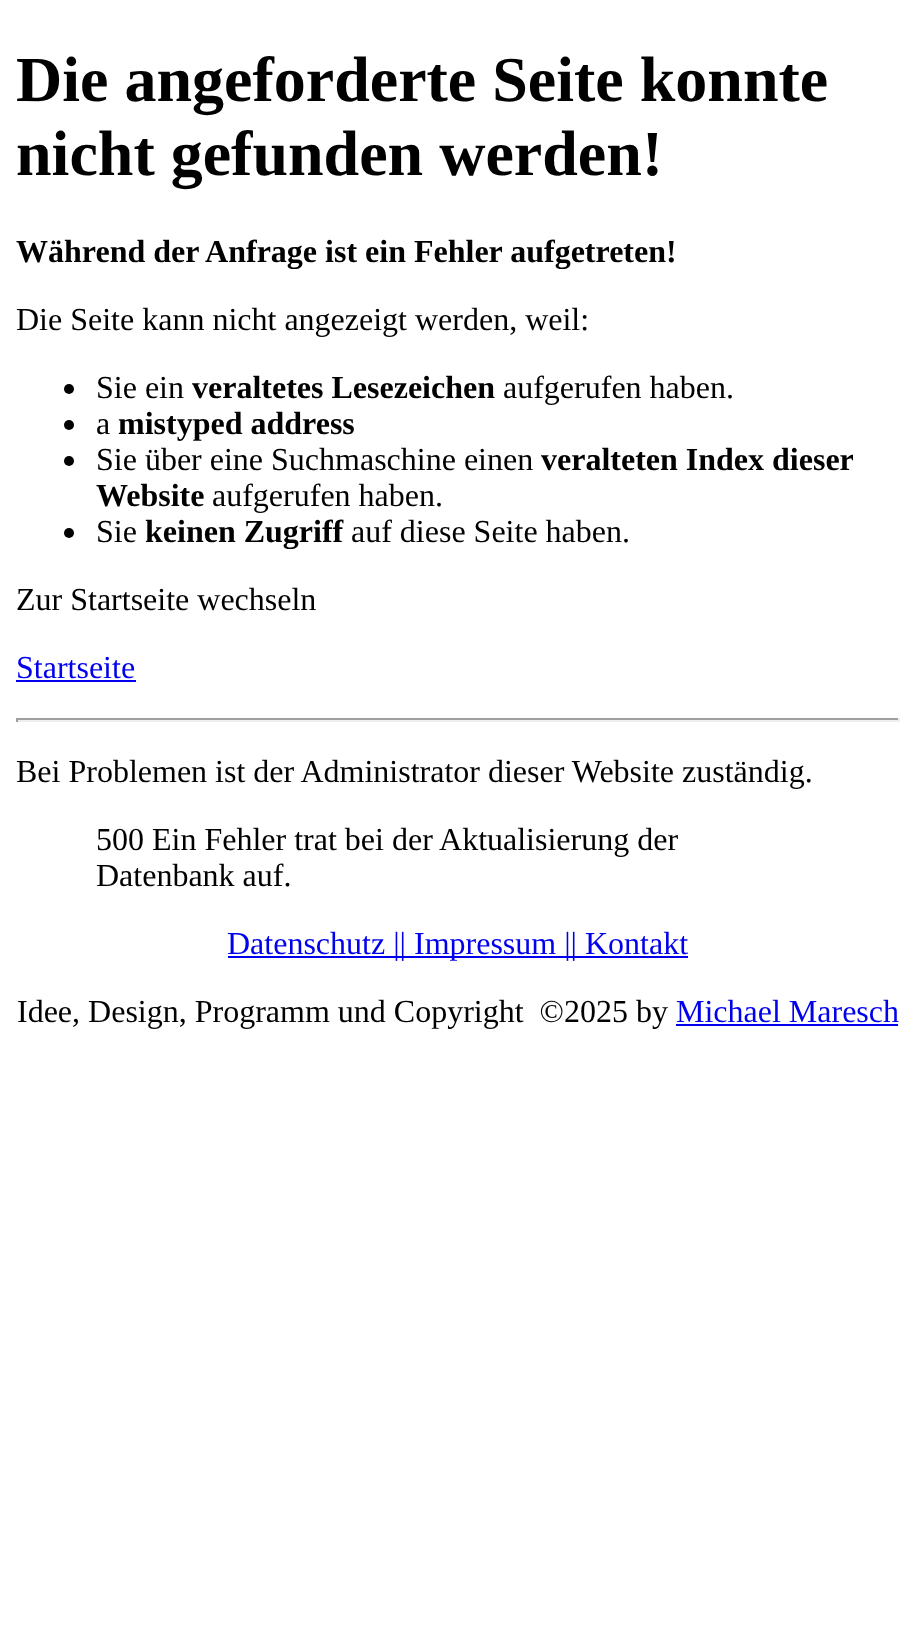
<svg xmlns="http://www.w3.org/2000/svg" width="916" height="1642" viewBox="0 0 916 1642">
  <rect width="100%" height="100%" fill="#ffffff"/>
  <text x="16" y="101" font-family="Liberation Serif" font-size="64" font-weight="bold" fill="#000000">Die angeforderte Seite konnte</text>
  <text x="16" y="175" font-family="Liberation Serif" font-size="64" font-weight="bold" fill="#000000">nicht gefunden werden!</text>
  <text x="16" y="262" font-family="Liberation Serif" font-size="32" font-weight="bold" fill="#000000">Während der Anfrage ist ein Fehler aufgetreten!</text>
  <text x="16" y="330" font-family="Liberation Serif" font-size="32" fill="#000000">Die Seite kann nicht angezeigt werden, weil:</text>
  <circle cx="69" cy="389" r="5" fill="#000000"/>
  <text x="96" y="398" font-family="Liberation Serif" font-size="32" fill="#000000">Sie ein</text>
  <text x="192" y="398" font-family="Liberation Serif" font-size="32" font-weight="bold" fill="#000000">veraltetes Lesezeichen</text>
  <text x="503" y="398" font-family="Liberation Serif" font-size="32" fill="#000000">aufgerufen haben.</text>
  <circle cx="69" cy="425" r="5" fill="#000000"/>
  <text x="96" y="434" font-family="Liberation Serif" font-size="32" fill="#000000">a</text>
  <text x="118" y="434" font-family="Liberation Serif" font-size="32" font-weight="bold" fill="#000000">mistyped address</text>
  <circle cx="69" cy="461" r="5" fill="#000000"/>
  <text x="96" y="470" font-family="Liberation Serif" font-size="32" fill="#000000">Sie über eine Suchmaschine einen</text>
  <text x="541" y="470" font-family="Liberation Serif" font-size="32" font-weight="bold" fill="#000000">veralteten Index dieser</text>
  <text x="96" y="506" font-family="Liberation Serif" font-size="32" font-weight="bold" fill="#000000">Website</text>
  <text x="212" y="506" font-family="Liberation Serif" font-size="32" fill="#000000">aufgerufen haben.</text>
  <circle cx="69" cy="533" r="5" fill="#000000"/>
  <text x="96" y="542" font-family="Liberation Serif" font-size="32" fill="#000000">Sie</text>
  <text x="145" y="542" font-family="Liberation Serif" font-size="32" font-weight="bold" fill="#000000">keinen Zugriff</text>
  <text x="351" y="542" font-family="Liberation Serif" font-size="32" fill="#000000">auf diese Seite haben.</text>
  <text x="16" y="610" font-family="Liberation Serif" font-size="32" fill="#000000">Zur Startseite wechseln</text>
  <text x="16" y="678" font-family="Liberation Serif" font-size="32" fill="#0000ee">Startseite</text>
  <rect x="16" y="680" width="120" height="2" fill="#0000ee"/>
  <rect x="16" y="718" width="884" height="2" fill="#9f9f9f"/>
  <rect x="898" y="718" width="2" height="4" fill="#eeeeee"/>
  <rect x="16" y="720" width="884" height="2" fill="#eeeeee"/>
  <rect x="16" y="718" width="2" height="4" fill="#9f9f9f"/>
  <text x="16" y="782" font-family="Liberation Serif" font-size="32" fill="#000000">Bei Problemen ist der Administrator dieser Website zuständig.</text>
  <text x="96" y="850" font-family="Liberation Serif" font-size="32" fill="#000000">500 Ein Fehler trat bei der Aktualisierung der</text>
  <text x="96" y="886" font-family="Liberation Serif" font-size="32" fill="#000000">Datenbank auf.</text>
  <rect x="228" y="956" width="460" height="2" fill="#0000ee"/>
  <text x="227" y="954" font-family="Liberation Serif" font-size="32" fill="#0000ee">Datenschutz || Impressum || Kontakt</text>
  <text x="17" y="1022" font-family="Liberation Serif" font-size="32" fill="#000000" xml:space="preserve">Idee, Design, Programm und Copyright  ©2025 by</text>
  <text x="676" y="1022" font-family="Liberation Serif" font-size="32" fill="#0000ee">Michael Maresch</text>
  <rect x="676" y="1024" width="222" height="2" fill="#0000ee"/>
</svg>
